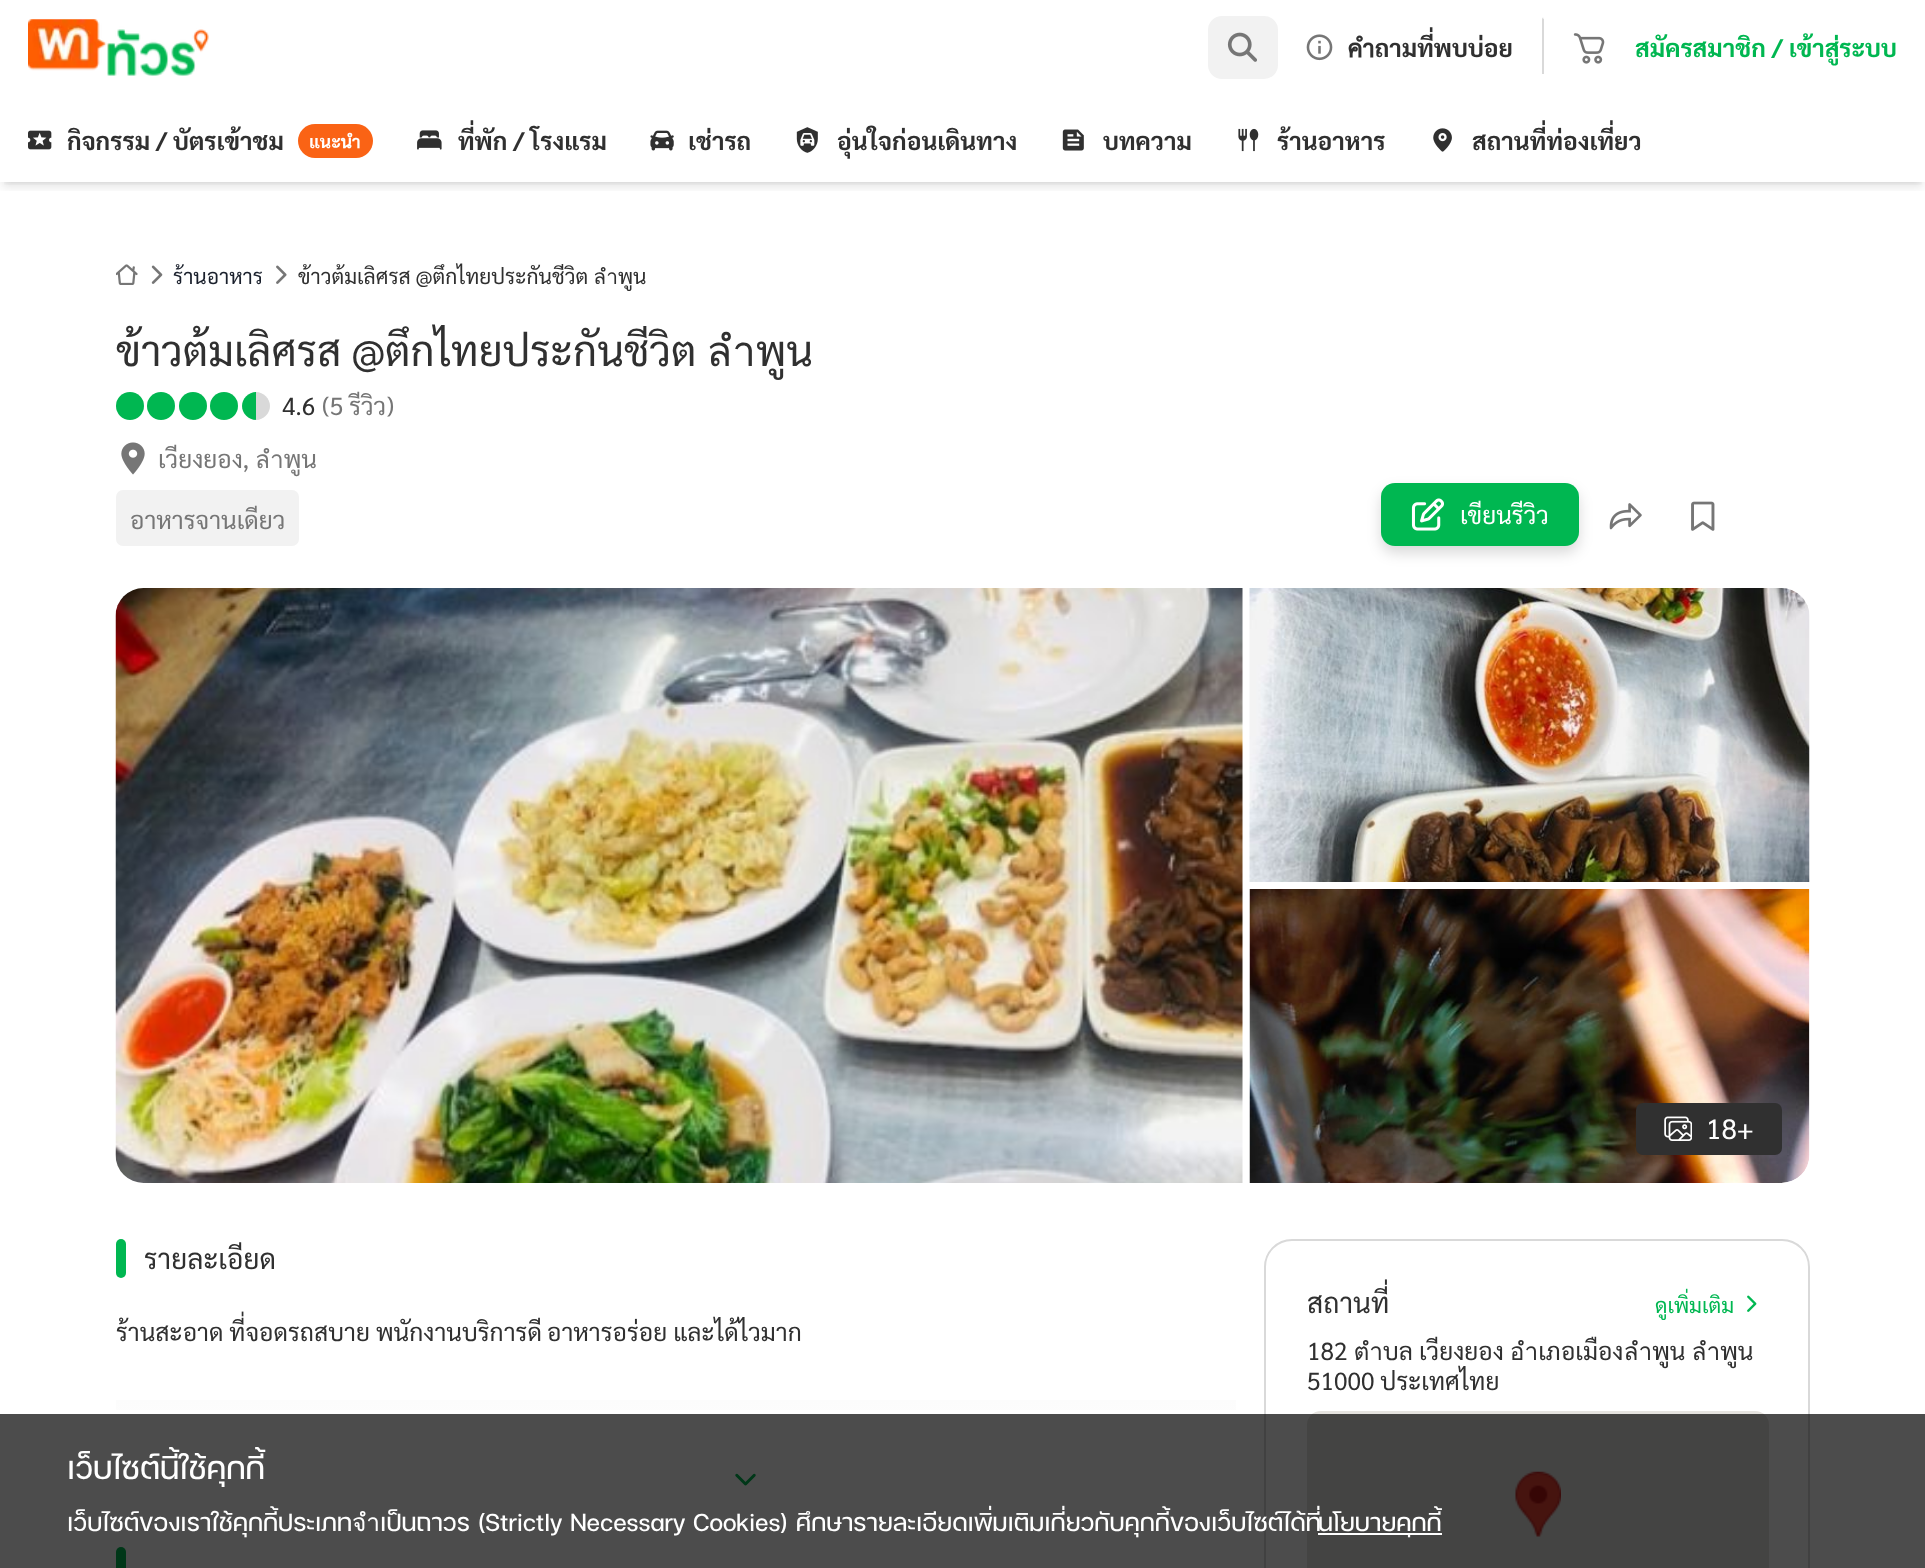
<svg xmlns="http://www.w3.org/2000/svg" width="1925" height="1568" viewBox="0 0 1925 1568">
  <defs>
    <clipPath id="clip1"><rect x="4" y="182" width="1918" height="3"/></clipPath>
    <filter id="blur1" x="-50%" y="-200%" width="200%" height="500%"><feGaussianBlur stdDeviation="3.5"/></filter>
    <clipPath id="clip2"><rect x="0" y="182" width="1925" height="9"/></clipPath>
    <filter id="blur2" x="-50%" y="-200%" width="200%" height="500%"><feGaussianBlur stdDeviation="5"/></filter>
    <filter id="blur3" x="-50%" y="-200%" width="200%" height="500%"><feGaussianBlur stdDeviation="7"/></filter>
    <clipPath id="clip3"><rect x="116" y="1306" width="1120" height="147"/></clipPath>
    <linearGradient id="g1" gradientUnits="userSpaceOnUse" x1="676" y1="1461" x2="676" y2="1400"><stop offset="0" stop-color="#ffffff"/><stop offset="1" stop-color="#fcfcfc"/></linearGradient>
  </defs>
  <rect width="100%" height="100%" fill="#ffffff"/>
  <g clip-path="url(#clip1)">
    <rect x="4" y="7" width="1918" height="175" fill="#000000" fill-opacity="0.1" filter="url(#blur1)"/>
  </g>
  <g clip-path="url(#clip2)">
    <rect x="2" y="9" width="1921" height="178" fill="#000000" fill-opacity="0.1" filter="url(#blur2)"/>
  </g>
  <image x="28" y="19" width="181" height="57" href="img1.png"/>
  <rect x="1208" y="16" width="70" height="63" rx="14" fill="#f2f2f2"/>
  <image x="1227" y="32" width="30" height="30" href="img2.png"/>
  <image x="1306" y="34" width="27" height="27" href="img3.png"/>
  <text x="1348" y="57" font-family="Sarabun" font-size="24.5" font-weight="bold" fill="#303030">คำถามที่พบบ่อย</text>
  <path d="M1542 17.5H1543.5V19Z" fill="#f0f0f0"/>
  <path d="M1542 74V18L1544 19V74Z" fill="#d9d9d9"/>
  <image x="1573" y="33" width="32" height="31" href="img4.png"/>
  <text x="1635" y="57" font-family="Sarabun" font-size="24.5" font-weight="bold" fill="#00b751">สมัครสมาชิก / เข้าสู่ระบบ</text>
  <image x="28" y="130" width="24" height="20" href="img5.png"/>
  <text x="67" y="150" font-family="Sarabun" font-size="24.5" font-weight="bold" fill="#303030">กิจกรรม / บัตรเข้าชม</text>
  <rect x="298" y="124" width="75" height="34" rx="17" fill="#fa6315"/>
  <text x="309" y="148" font-family="Sarabun" font-size="17.5" font-weight="bold" fill="#ffffff">แนะนำ</text>
  <image x="417" y="130" width="25" height="20" href="img6.png"/>
  <text x="458" y="150" font-family="Sarabun" font-size="24.5" font-weight="bold" fill="#303030">ที่พัก / โรงแรม</text>
  <image x="650" y="130" width="24" height="21" href="img7.png"/>
  <text x="688" y="150" font-family="Sarabun" font-size="24.5" font-weight="bold" fill="#303030">เช่ารถ</text>
  <image x="796" y="127" width="22" height="26" href="img8.png"/>
  <text x="837" y="150" font-family="Sarabun" font-size="24.5" font-weight="bold" fill="#303030">อุ่นใจก่อนเดินทาง</text>
  <image x="1062" y="129" width="22" height="22" href="img9.png"/>
  <text x="1103" y="150" font-family="Sarabun" font-size="24.5" font-weight="bold" fill="#303030">บทความ</text>
  <image x="1238" y="128" width="21" height="24" href="img10.png"/>
  <text x="1277" y="150" font-family="Sarabun" font-size="24.5" font-weight="bold" fill="#303030">ร้านอาหาร</text>
  <image x="1433" y="128" width="19" height="24" href="img11.png"/>
  <text x="1472" y="150" font-family="Sarabun" font-size="24.5" font-weight="bold" fill="#303030">สถานที่ท่องเที่ยว</text>
  <image x="116" y="264" width="22" height="21" href="img12.png"/>
  <image x="151" y="265" width="12" height="19" href="img13.png"/>
  <text x="173" y="284" font-family="Sarabun" font-size="21" fill="#1a202c">ร้านอาหาร</text>
  <image x="276" y="265" width="11" height="19" href="img14.png"/>
  <text x="298" y="284" font-family="Sarabun" font-size="21" fill="#303030">ข้าวต้มเลิศรส @ตึกไทยประกันชีวิต ลำพูน</text>
  <text x="116" y="366" font-family="Sarabun" font-size="42" fill="#303030">ข้าวต้มเลิศรส @ตึกไทยประกันชีวิต ลำพูน</text>
  <circle cx="130" cy="406" r="14" fill="#00b751"/>
  <circle cx="161" cy="406" r="14" fill="#00b751"/>
  <circle cx="193" cy="406" r="14" fill="#00b751"/>
  <circle cx="224" cy="406" r="14" fill="#00b751"/>
  <path d="M256 392V420C248.5 420 242 413.5 242 406C242 398.5 248.5 392 256 392Z" fill="#00b751"/>
  <path d="M256 392C263.5 392 270 398.5 270 406C270 413.5 263.5 420 256 420Z" fill="#d9d9d9"/>
  <text x="282" y="415" font-family="Sarabun" font-size="24.5" fill="#303030">4.6</text>
  <text x="322" y="415" font-family="Sarabun" font-size="24.5" fill="#767676">(5 รีวิว)</text>
  <image x="121" y="442" width="24" height="33" href="img15.png"/>
  <text x="158" y="468" font-family="Sarabun" font-size="24.5" fill="#767676">เวียงยอง, ลำพูน</text>
  <rect x="116" y="490" width="183" height="56" rx="7" fill="#f2f2f2"/>
  <text x="130" y="529" font-family="Sarabun" font-size="24.5" fill="#767676">อาหารจานเดียว</text>
  <rect x="1381" y="490" width="198" height="63" rx="14" fill="#000000" fill-opacity="0.15" filter="url(#blur3)"/>
  <rect x="1381" y="483" width="198" height="63" rx="14" fill="#00b751"/>
  <image x="1411" y="498" width="33" height="33" href="img16.png"/>
  <text x="1460" y="524" font-family="Sarabun" font-size="24.5" fill="#ffffff">เขียนรีวิว</text>
  <image x="1609" y="503" width="33" height="27" href="img17.png"/>
  <image x="1691" y="501" width="24" height="30" href="img18.png"/>
  <image x="115" y="588" width="1128" height="595" href="img19.png"/>
  <image x="1249" y="588" width="561" height="294" href="img20.png"/>
  <image x="1249" y="889" width="561" height="294" href="img21.png"/>
  <rect x="1636" y="1103" width="146" height="52" rx="7" fill="#303030"/>
  <image x="1664" y="1116" width="28" height="25" href="img22.png"/>
  <text x="1706" y="1139" font-family="Sarabun" font-size="28" fill="#ffffff">18+</text>
  <rect x="116" y="1239" width="10" height="39" rx="5" fill="#00b751"/>
  <text x="144" y="1269" font-family="Sarabun" font-size="28" fill="#303030">รายละเอียด</text>
  <g clip-path="url(#clip3)">
    <text x="116" y="1341" font-family="Sarabun" font-size="24.5" fill="#303030">ร้านสะอาด ที่จอดรถสบาย พนักงานบริการดี</text>
  </g>
  <text x="547" y="1341" font-family="Sarabun" font-size="24.5" fill="#303030">อาหารอร่อย และได้ไวมาก</text>
  <rect x="116" y="1400" width="1120" height="10" fill="url(#g1)"/>
  <image x="735" y="1473" width="21" height="13" href="img23.png"/>
  <rect x="116" y="1547" width="10" height="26" rx="5" fill="#00b751"/>
  <rect x="1265" y="1240" width="544" height="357" rx="27" fill="none" stroke="#d9d9d9" stroke-width="2"/>
  <text x="1307" y="1313" font-family="Sarabun" font-size="28" fill="#303030">สถานที่</text>
  <text x="1655" y="1313" font-family="Sarabun" font-size="21" fill="#00b751">ดูเพิ่มเติม</text>
  <image x="1747" y="1295" width="10" height="17" href="img24.png"/>
  <text x="1307" y="1360" font-family="Sarabun" font-size="24.5" fill="#303030">182 ตำบล เวียงยอง อำเภอเมืองลำพูน ลำพูน</text>
  <text x="1307" y="1390" font-family="Sarabun" font-size="24.5" fill="#303030">51000 ประเทศไทย</text>
  <rect x="1307" y="1411" width="462" height="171" rx="14" fill="#e5e3df"/>
  <image x="1515" y="1471" width="46" height="66" href="img25.png"/>
  <rect x="0" y="1414" width="1925" height="154" fill="#000000" fill-opacity="0.7"/>
  <text x="67" y="1479" font-family="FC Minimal" font-size="31.5" fill="#ffffff">เว็บไซต์นี้ใช้คุกกี้</text>
  <text x="67" y="1531" font-family="FC Minimal" font-size="24.5" fill="#ffffff">เว็บไซต์ของเราใช้คุกกี้ประเภทจำเป็นถาวร (Strictly Necessary Cookies) ศึกษารายละเอียดเพิ่มเติมเกี่ยวกับคุกกี้ของเว็บไซต์ได้ที่</text>
  <rect x="1318" y="1533" width="124" height="2" fill="#ffffff"/>
  <text x="1318" y="1531" font-family="FC Minimal" font-size="24.5" fill="#ffffff">นโยบายคุกกี้</text>
</svg>
